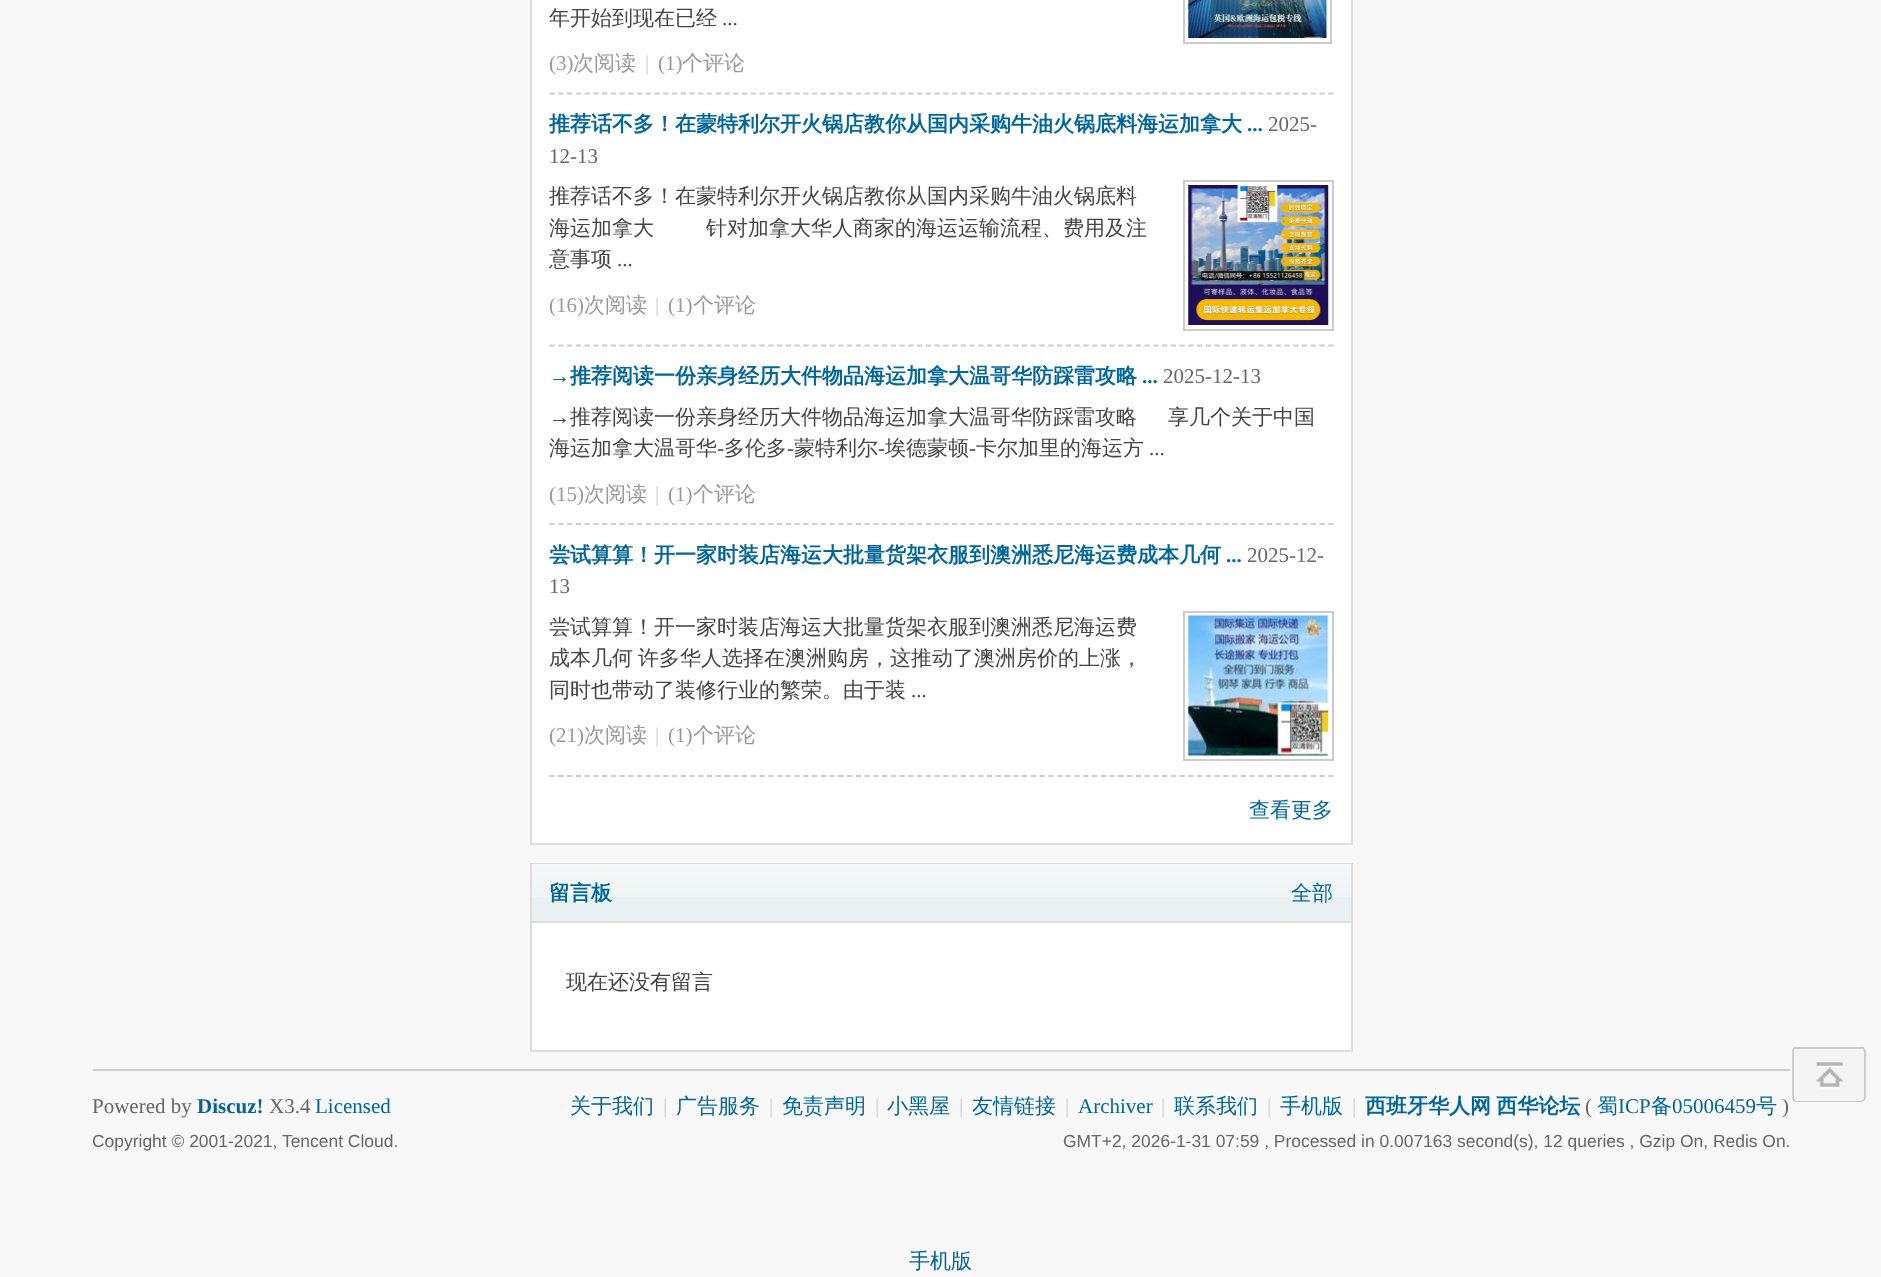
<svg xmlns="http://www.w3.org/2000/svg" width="1881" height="1277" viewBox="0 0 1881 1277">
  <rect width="100%" height="100%" fill="#f8f8f8"/>
  <rect x="531" y="-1" width="821" height="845" fill="#ffffff" stroke="#dddddd" stroke-width="2"/>
  <path d="M549.5 93.5H1333.5" fill="none" stroke="#cdcdcd" stroke-width="1.8" stroke-dasharray="5.25 3.5"/>
  <text x="549" y="25" font-family="WenQuanYi Zen Hei" font-size="21" font-weight="500" fill="#444444">年开始到现在已经</text>
  <text x="722" y="25" font-family="Liberation Serif" font-size="21" fill="#444444">...</text>
  <rect x="1184" y="-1" width="147" height="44" fill="none" stroke="#cccccc" stroke-width="2"/>
  <image x="1188" y="0" width="139" height="38" href="img1.png"/>
  <text x="549" y="70" font-family="Liberation Serif" font-size="21" fill="#999999">(3)</text>
  <text x="573" y="70" font-family="WenQuanYi Zen Hei" font-size="21" font-weight="500" fill="#999999">次阅读</text>
  <text x="645" y="70" font-family="Liberation Serif" font-size="21" fill="#cccccc">|</text>
  <text x="658" y="70" font-family="Liberation Serif" font-size="21" fill="#999999">(1)</text>
  <text x="682" y="70" font-family="WenQuanYi Zen Hei" font-size="21" font-weight="500" fill="#999999">个评论</text>
  <path d="M549.5 345.5H1333.5" fill="none" stroke="#cdcdcd" stroke-width="1.8" stroke-dasharray="5.25 3.5"/>
  <text x="549" y="131" font-family="WenQuanYi Zen Hei" font-size="21" font-weight="bold" fill="#006699">推荐话不多！在蒙特利尔开火锅店教你从国内采购牛油火锅底料海运加拿大</text>
  <text x="1247" y="131" font-family="Liberation Serif" font-size="21" font-weight="bold" fill="#006699">...</text>
  <text x="1268" y="131" font-family="Liberation Serif" font-size="21" fill="#666666">2025-</text>
  <text x="549" y="163" font-family="Liberation Serif" font-size="21" fill="#666666">12-13</text>
  <text x="549" y="203" font-family="WenQuanYi Zen Hei" font-size="21" font-weight="500" fill="#444444">推荐话不多！在蒙特利尔开火锅店教你从国内采购牛油火锅底料</text>
  <text x="549" y="235" font-family="WenQuanYi Zen Hei" font-size="21" font-weight="500" fill="#444444">海运加拿大</text>
  <text x="706" y="235" font-family="WenQuanYi Zen Hei" font-size="21" font-weight="500" fill="#444444">针对加拿大华人商家的海运运输流程、费用及注</text>
  <text x="549" y="266" font-family="WenQuanYi Zen Hei" font-size="21" font-weight="500" fill="#444444">意事项</text>
  <text x="617" y="266" font-family="Liberation Serif" font-size="21" fill="#444444">...</text>
  <rect x="1184" y="181" width="149" height="149" fill="none" stroke="#cccccc" stroke-width="2"/>
  <image x="1188" y="185" width="141" height="140" href="img2.png"/>
  <text x="549" y="312" font-family="Liberation Serif" font-size="21" fill="#999999">(16)</text>
  <text x="584" y="312" font-family="WenQuanYi Zen Hei" font-size="21" font-weight="500" fill="#999999">次阅读</text>
  <text x="655" y="312" font-family="Liberation Serif" font-size="21" fill="#cccccc">|</text>
  <text x="668" y="312" font-family="Liberation Serif" font-size="21" fill="#999999">(1)</text>
  <text x="693" y="312" font-family="WenQuanYi Zen Hei" font-size="21" font-weight="500" fill="#999999">个评论</text>
  <path d="M549.5 524H1333.5" fill="none" stroke="#cdcdcd" stroke-width="1.8" stroke-dasharray="5.25 3.5"/>
  <text x="549" y="383" font-family="Liberation Serif" font-size="21" font-weight="bold" fill="#006699">→</text>
  <text x="570" y="383" font-family="WenQuanYi Zen Hei" font-size="21" font-weight="bold" fill="#006699">推荐阅读一份亲身经历大件物品海运加拿大温哥华防踩雷攻略</text>
  <text x="1142" y="383" font-family="Liberation Serif" font-size="21" font-weight="bold" fill="#006699">...</text>
  <text x="1163" y="383" font-family="Liberation Serif" font-size="21" fill="#666666">2025-12-13</text>
  <text x="549" y="424" font-family="Liberation Serif" font-size="21" fill="#444444">→</text>
  <text x="570" y="424" font-family="WenQuanYi Zen Hei" font-size="21" font-weight="500" fill="#444444">推荐阅读一份亲身经历大件物品海运加拿大温哥华防踩雷攻略</text>
  <text x="1168" y="424" font-family="WenQuanYi Zen Hei" font-size="21" font-weight="500" fill="#444444">享几个关于中国</text>
  <text x="549" y="455" font-family="WenQuanYi Zen Hei" font-size="21" font-weight="500" fill="#444444">海运加拿大温哥华</text>
  <text x="717" y="455" font-family="Liberation Serif" font-size="21" fill="#444444">-</text>
  <text x="724" y="455" font-family="WenQuanYi Zen Hei" font-size="21" font-weight="500" fill="#444444">多伦多</text>
  <text x="787" y="455" font-family="Liberation Serif" font-size="21" fill="#444444">-</text>
  <text x="794" y="455" font-family="WenQuanYi Zen Hei" font-size="21" font-weight="500" fill="#444444">蒙特利尔</text>
  <text x="878" y="455" font-family="Liberation Serif" font-size="21" fill="#444444">-</text>
  <text x="885" y="455" font-family="WenQuanYi Zen Hei" font-size="21" font-weight="500" fill="#444444">埃德蒙顿</text>
  <text x="969" y="455" font-family="Liberation Serif" font-size="21" fill="#444444">-</text>
  <text x="976" y="455" font-family="WenQuanYi Zen Hei" font-size="21" font-weight="500" fill="#444444">卡尔加里的海运方</text>
  <text x="1149" y="455" font-family="Liberation Serif" font-size="21" fill="#444444">...</text>
  <text x="549" y="501" font-family="Liberation Serif" font-size="21" fill="#999999">(15)</text>
  <text x="584" y="501" font-family="WenQuanYi Zen Hei" font-size="21" font-weight="500" fill="#999999">次阅读</text>
  <text x="655" y="501" font-family="Liberation Serif" font-size="21" fill="#cccccc">|</text>
  <text x="668" y="501" font-family="Liberation Serif" font-size="21" fill="#999999">(1)</text>
  <text x="693" y="501" font-family="WenQuanYi Zen Hei" font-size="21" font-weight="500" fill="#999999">个评论</text>
  <path d="M549.5 776H1333.5" fill="none" stroke="#cdcdcd" stroke-width="1.8" stroke-dasharray="5.25 3.5"/>
  <text x="549" y="562" font-family="WenQuanYi Zen Hei" font-size="21" font-weight="bold" fill="#006699">尝试算算！开一家时装店海运大批量货架衣服到澳洲悉尼海运费成本几何</text>
  <text x="1226" y="562" font-family="Liberation Serif" font-size="21" font-weight="bold" fill="#006699">...</text>
  <text x="1247" y="562" font-family="Liberation Serif" font-size="21" fill="#666666">2025-12-</text>
  <text x="549" y="593" font-family="Liberation Serif" font-size="21" fill="#666666">13</text>
  <text x="549" y="634" font-family="WenQuanYi Zen Hei" font-size="21" font-weight="500" fill="#444444">尝试算算！开一家时装店海运大批量货架衣服到澳洲悉尼海运费</text>
  <text x="549" y="665" font-family="WenQuanYi Zen Hei" font-size="21" font-weight="500" fill="#444444">成本几何</text>
  <text x="638" y="665" font-family="WenQuanYi Zen Hei" font-size="21" font-weight="500" fill="#444444">许多华人选择在澳洲购房，这推动了澳洲房价的上涨，</text>
  <text x="549" y="697" font-family="WenQuanYi Zen Hei" font-size="21" font-weight="500" fill="#444444">同时也带动了装修行业的繁荣。由于装</text>
  <text x="911" y="697" font-family="Liberation Serif" font-size="21" fill="#444444">...</text>
  <rect x="1184" y="612" width="149" height="148" fill="none" stroke="#cccccc" stroke-width="2"/>
  <image x="1188" y="615" width="141" height="141" href="img3.png"/>
  <text x="549" y="742" font-family="Liberation Serif" font-size="21" fill="#999999">(21)</text>
  <text x="584" y="742" font-family="WenQuanYi Zen Hei" font-size="21" font-weight="500" fill="#999999">次阅读</text>
  <text x="655" y="742" font-family="Liberation Serif" font-size="21" fill="#cccccc">|</text>
  <text x="668" y="742" font-family="Liberation Serif" font-size="21" fill="#999999">(1)</text>
  <text x="693" y="742" font-family="WenQuanYi Zen Hei" font-size="21" font-weight="500" fill="#999999">个评论</text>
  <text x="1249" y="817" font-family="WenQuanYi Zen Hei" font-size="21" font-weight="500" fill="#006699">查看更多</text>
  <rect x="532" y="923" width="819" height="127" fill="#ffffff"/>
  <rect x="531" y="864" width="821" height="187" fill="none" stroke="#dddddd" stroke-width="2"/>
  <rect x="532" y="897" width="819" height="24" fill="#eaf1f2"/>
  <image x="532" y="864" width="819" height="33" href="img4.png"/>
  <rect x="532" y="921" width="819" height="2" fill="#dddddd"/>
  <text x="549" y="900" font-family="WenQuanYi Zen Hei" font-size="21" font-weight="bold" fill="#006699">留言板</text>
  <text x="1291" y="900" font-family="WenQuanYi Zen Hei" font-size="21" font-weight="500" fill="#006699">全部</text>
  <text x="566" y="989" font-family="WenQuanYi Zen Hei" font-size="21" font-weight="500" fill="#444444">现在还没有留言</text>
  <rect x="1792" y="1047" width="74" height="56" rx="5" fill="#f4f4f4"/>
  <path d="M1797 1046H1860C1863 1046 1866 1049 1866 1052V1097C1866 1100 1863 1102 1860 1102H1797C1794 1102 1792 1100 1792 1097V1052C1792 1049 1794 1046 1797 1046ZM1797 1046H1860C1862 1046 1864 1049 1864 1052V1097C1864 1099 1862 1101 1860 1101H1797C1795 1101 1794 1099 1794 1097V1052C1794 1049 1795 1046 1797 1046Z" fill="#cdcdcd" fill-rule="evenodd"/>
  <image x="1816" y="1062" width="28" height="27" href="img5.png"/>
  <rect x="1794" y="1047" width="70" height="2" fill="#cdcdcd"/>
  <rect x="93" y="1069" width="1697" height="2" fill="#cccccc"/>
  <text x="92" y="1113" font-family="Liberation Serif" font-size="21" fill="#666666">Powered by</text>
  <text x="197" y="1113" font-family="Liberation Serif" font-size="21" font-weight="bold" fill="#006699">Discuz!</text>
  <text x="269" y="1113" font-family="Liberation Serif" font-size="21" fill="#666666">X3.4</text>
  <text x="315" y="1113" font-family="Liberation Serif" font-size="21" fill="#006699">Licensed</text>
  <text x="92" y="1147" font-family="Liberation Sans" font-size="17.45" fill="#666666">Copyright © 2001-2021, Tencent Cloud.</text>
  <text x="570" y="1113" font-family="WenQuanYi Zen Hei" font-size="21" font-weight="500" fill="#006699">关于我们</text>
  <text x="663" y="1113" font-family="Liberation Serif" font-size="21" fill="#cccccc">|</text>
  <text x="676" y="1113" font-family="WenQuanYi Zen Hei" font-size="21" font-weight="500" fill="#006699">广告服务</text>
  <text x="769" y="1113" font-family="Liberation Serif" font-size="21" fill="#cccccc">|</text>
  <text x="782" y="1113" font-family="WenQuanYi Zen Hei" font-size="21" font-weight="500" fill="#006699">免责声明</text>
  <text x="875" y="1113" font-family="Liberation Serif" font-size="21" fill="#cccccc">|</text>
  <text x="887" y="1113" font-family="WenQuanYi Zen Hei" font-size="21" font-weight="500" fill="#006699">小黑屋</text>
  <text x="959" y="1113" font-family="Liberation Serif" font-size="21" fill="#cccccc">|</text>
  <text x="972" y="1113" font-family="WenQuanYi Zen Hei" font-size="21" font-weight="500" fill="#006699">友情链接</text>
  <text x="1065" y="1113" font-family="Liberation Serif" font-size="21" fill="#cccccc">|</text>
  <text x="1078" y="1113" font-family="Liberation Serif" font-size="21" fill="#006699">Archiver</text>
  <text x="1161" y="1113" font-family="Liberation Serif" font-size="21" fill="#cccccc">|</text>
  <text x="1174" y="1113" font-family="WenQuanYi Zen Hei" font-size="21" font-weight="500" fill="#006699">联系我们</text>
  <text x="1267" y="1113" font-family="Liberation Serif" font-size="21" fill="#cccccc">|</text>
  <text x="1280" y="1113" font-family="WenQuanYi Zen Hei" font-size="21" font-weight="500" fill="#006699">手机版</text>
  <text x="1352" y="1113" font-family="Liberation Serif" font-size="21" fill="#cccccc">|</text>
  <text x="1365" y="1113" word-spacing="-1" font-family="WenQuanYi Zen Hei" font-size="21" font-weight="bold" fill="#006699">西班牙华人网 西华论坛</text>
  <text x="1585" y="1113" font-family="Liberation Serif" font-size="21" fill="#666666">(</text>
  <text x="1597" y="1113" font-family="WenQuanYi Zen Hei" font-size="21" font-weight="500" fill="#006699">蜀</text>
  <text x="1618" y="1113" font-family="Liberation Serif" font-size="21" fill="#006699">ICP</text>
  <text x="1651" y="1113" font-family="WenQuanYi Zen Hei" font-size="21" font-weight="500" fill="#006699">备</text>
  <text x="1672" y="1113" font-family="Liberation Serif" font-size="21" fill="#006699">05006459</text>
  <text x="1756" y="1113" font-family="WenQuanYi Zen Hei" font-size="21" font-weight="500" fill="#006699">号</text>
  <text x="1782" y="1113" font-family="Liberation Serif" font-size="21" fill="#666666">)</text>
  <text x="1063" y="1147" font-family="Liberation Sans" font-size="17.45" fill="#666666">GMT+2, 2026-1-31 07:59 , Processed in 0.007163 second(s), 12 queries , Gzip On, Redis On.</text>
  <text x="909" y="1268" font-family="WenQuanYi Zen Hei" font-size="21" font-weight="500" fill="#006699">手机版</text>
</svg>
